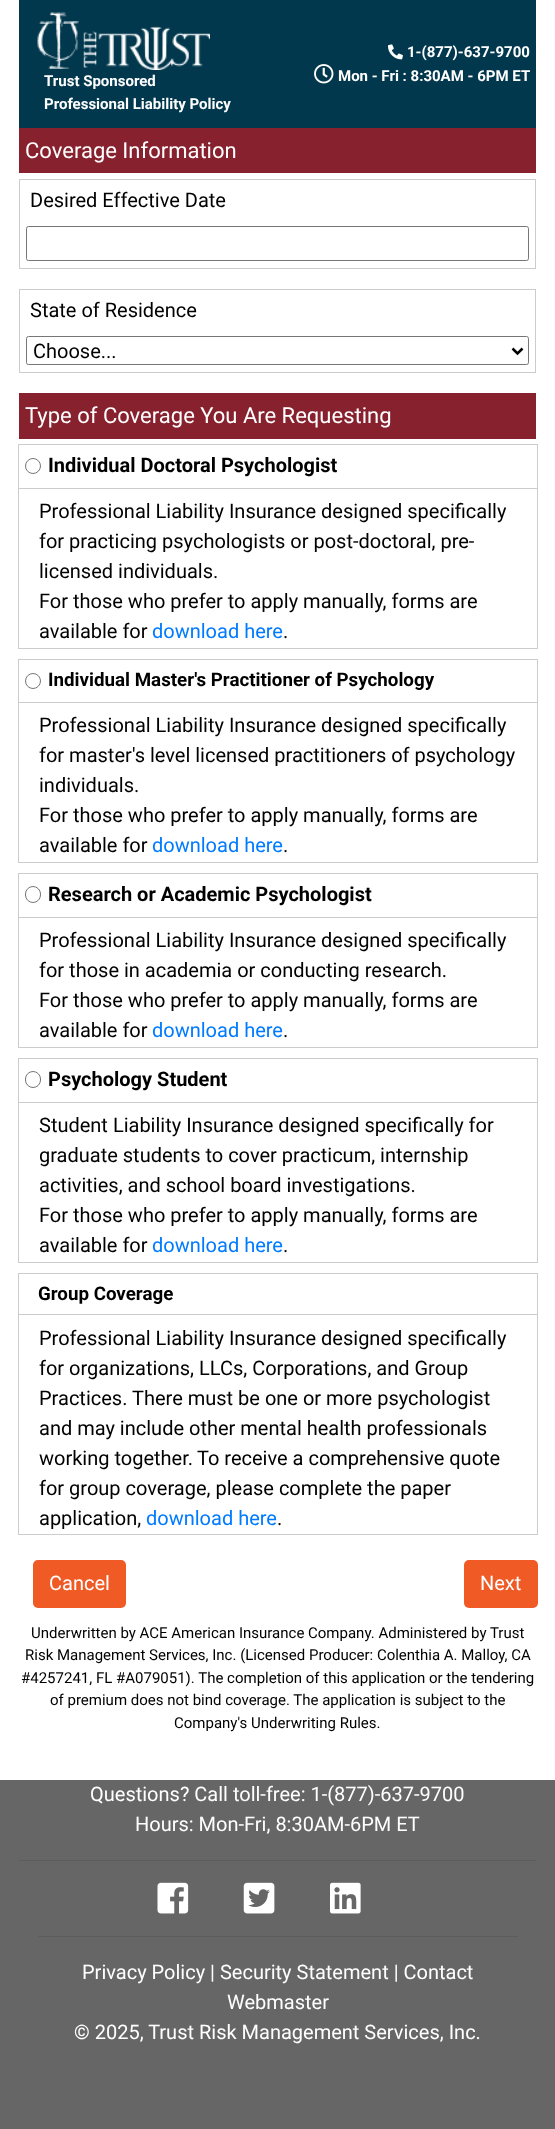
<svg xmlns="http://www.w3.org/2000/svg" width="555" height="2129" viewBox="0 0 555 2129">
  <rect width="100%" height="100%" fill="#ffffff"/>
  <rect x="19" y="0" width="517" height="128" fill="#02384e"/>
  <image x="388" y="44" width="15" height="16" href="img1.png"/>
  <text x="407" y="57" font-family="Roboto" font-size="15" font-weight="bold" fill="#ffffff">1-(877)-637-9700</text>
  <image x="314" y="64" width="20" height="20" href="img2.png"/>
  <text x="338" y="81" font-family="Roboto" font-size="15" font-weight="bold" fill="#ffffff">Mon - Fri : 8:30AM - 6PM ET</text>
  <image x="37" y="12" width="173" height="58" href="img3.png"/>
  <text x="44" y="86" font-family="Roboto" font-size="15" font-weight="bold" fill="#ffffff">Trust Sponsored</text>
  <text x="44" y="109" font-family="Roboto" font-size="15" font-weight="bold" fill="#ffffff">Professional Liability Policy</text>
  <rect x="19" y="128" width="517" height="45" fill="#87212e"/>
  <text x="25" y="158" font-family="Roboto" font-size="22" fill="#ffffff">Coverage Information</text>
  <rect x="19.5" y="179.5" width="516" height="89" fill="none" stroke="#cccccc"/>
  <text x="30" y="207" font-family="Roboto" font-size="20" fill="#000000">Desired Effective Date</text>
  <rect x="26.5" y="226.5" width="502" height="34" rx="2" fill="none" stroke="#767676"/>
  <rect x="19.5" y="289.5" width="516" height="83" fill="none" stroke="#cccccc"/>
  <text x="30" y="317" font-family="Roboto" font-size="20" fill="#000000">State of Residence</text>
  <rect x="26.5" y="336.5" width="502" height="28" rx="2" fill="none" stroke="#767676"/>
  <path d="M512.5 348.5L517.5 353.5L522.5 348.5" fill="none" stroke="#000000" stroke-width="2.5"/>
  <text x="33" y="358" font-family="Roboto" font-size="20" fill="#000000">Choose...</text>
  <rect x="19" y="393" width="517" height="46" fill="#87212e"/>
  <text x="25" y="423" font-family="Roboto" font-size="22" fill="#ffffff">Type of Coverage You Are Requesting</text>
  <circle cx="33" cy="466" r="7.5" fill="none" stroke="#767676"/>
  <rect x="18.5" y="444.5" width="519" height="44" fill="none" stroke="#cccccc"/>
  <rect x="18.5" y="444.5" width="519" height="204" fill="none" stroke="#cccccc"/>
  <text x="48" y="472" font-family="Roboto" font-size="20" font-weight="bold" fill="#000000">Individual Doctoral Psychologist</text>
  <text x="39" y="518" font-family="Roboto" font-size="20" fill="#000000">Professional Liability Insurance designed specifically</text>
  <text x="39" y="548" font-family="Roboto" font-size="20" fill="#000000">for practicing psychologists or post-doctoral, pre-</text>
  <text x="39" y="578" font-family="Roboto" font-size="20" fill="#000000">licensed individuals.</text>
  <text x="39" y="608" font-family="Roboto" font-size="20" fill="#000000">For those who prefer to apply manually, forms are</text>
  <text x="39" y="638" font-family="Roboto" font-size="20" fill="#000000">available for</text>
  <text x="152" y="638" font-family="Roboto" font-size="20" fill="#007bff">download here</text>
  <text x="283" y="638" font-family="Roboto" font-size="20" fill="#000000">.</text>
  <circle cx="33" cy="681" r="7.5" fill="none" stroke="#767676"/>
  <rect x="18.5" y="659.5" width="519" height="43" fill="none" stroke="#cccccc"/>
  <rect x="18.5" y="659.5" width="519" height="203" fill="none" stroke="#cccccc"/>
  <text x="48" y="686" font-family="Roboto" font-size="18.75" font-weight="bold" fill="#000000">Individual Master's Practitioner of Psychology</text>
  <text x="39" y="732" font-family="Roboto" font-size="20" fill="#000000">Professional Liability Insurance designed specifically</text>
  <text x="39" y="762" font-family="Roboto" font-size="20" fill="#000000">for master's level licensed practitioners of psychology</text>
  <text x="39" y="792" font-family="Roboto" font-size="20" fill="#000000">individuals.</text>
  <text x="39" y="822" font-family="Roboto" font-size="20" fill="#000000">For those who prefer to apply manually, forms are</text>
  <text x="39" y="852" font-family="Roboto" font-size="20" fill="#000000">available for</text>
  <text x="152" y="852" font-family="Roboto" font-size="20" fill="#007bff">download here</text>
  <text x="283" y="852" font-family="Roboto" font-size="20" fill="#000000">.</text>
  <rect x="25.5" y="886.5" width="15" height="16" rx="7.5" fill="none" stroke="#767676"/>
  <rect x="18.5" y="873.5" width="519" height="44" fill="none" stroke="#cccccc"/>
  <rect x="18.5" y="873.5" width="519" height="174" fill="none" stroke="#cccccc"/>
  <text x="48" y="901" font-family="Roboto" font-size="20" font-weight="bold" fill="#000000">Research or Academic Psychologist</text>
  <text x="39" y="947" font-family="Roboto" font-size="20" fill="#000000">Professional Liability Insurance designed specifically</text>
  <text x="39" y="977" font-family="Roboto" font-size="20" fill="#000000">for those in academia or conducting research.</text>
  <text x="39" y="1007" font-family="Roboto" font-size="20" fill="#000000">For those who prefer to apply manually, forms are</text>
  <text x="39" y="1037" font-family="Roboto" font-size="20" fill="#000000">available for</text>
  <text x="152" y="1037" font-family="Roboto" font-size="20" fill="#007bff">download here</text>
  <text x="283" y="1037" font-family="Roboto" font-size="20" fill="#000000">.</text>
  <rect x="25.5" y="1071.5" width="15" height="16" rx="7.5" fill="none" stroke="#767676"/>
  <rect x="18.5" y="1058.5" width="519" height="44" fill="none" stroke="#cccccc"/>
  <rect x="18.5" y="1058.5" width="519" height="204" fill="none" stroke="#cccccc"/>
  <text x="48" y="1086" font-family="Roboto" font-size="20" font-weight="bold" fill="#000000">Psychology Student</text>
  <text x="39" y="1132" font-family="Roboto" font-size="20" fill="#000000">Student Liability Insurance designed specifically for</text>
  <text x="39" y="1162" font-family="Roboto" font-size="20" fill="#000000">graduate students to cover practicum, internship</text>
  <text x="39" y="1192" font-family="Roboto" font-size="20" fill="#000000">activities, and school board investigations.</text>
  <text x="39" y="1222" font-family="Roboto" font-size="20" fill="#000000">For those who prefer to apply manually, forms are</text>
  <text x="39" y="1252" font-family="Roboto" font-size="20" fill="#000000">available for</text>
  <text x="152" y="1252" font-family="Roboto" font-size="20" fill="#007bff">download here</text>
  <text x="283" y="1252" font-family="Roboto" font-size="20" fill="#000000">.</text>
  <rect x="18.5" y="1273.5" width="519" height="41" fill="none" stroke="#cccccc"/>
  <rect x="18.5" y="1273.5" width="519" height="261" fill="none" stroke="#cccccc"/>
  <text x="38" y="1300" font-family="Roboto" font-size="18.75" font-weight="bold" fill="#000000">Group Coverage</text>
  <text x="39" y="1345" font-family="Roboto" font-size="20" fill="#000000">Professional Liability Insurance designed specifically</text>
  <text x="39" y="1375" font-family="Roboto" font-size="20" fill="#000000">for organizations, LLCs, Corporations, and Group</text>
  <text x="39" y="1405" font-family="Roboto" font-size="20" fill="#000000">Practices.</text>
  <text x="132" y="1405" font-family="Roboto" font-size="20" fill="#000000">There must be one or more psychologist</text>
  <text x="39" y="1435" font-family="Roboto" font-size="20" fill="#000000">and may include other mental health professionals</text>
  <text x="39" y="1465" font-family="Roboto" font-size="20" fill="#000000">working together.</text>
  <text x="197" y="1465" font-family="Roboto" font-size="20" fill="#000000">To receive a comprehensive quote</text>
  <text x="39" y="1495" font-family="Roboto" font-size="20" fill="#000000">for group coverage, please complete the paper</text>
  <text x="39" y="1525" font-family="Roboto" font-size="20" fill="#000000">application,</text>
  <text x="146" y="1525" font-family="Roboto" font-size="20" fill="#007bff">download here</text>
  <text x="277" y="1525" font-family="Roboto" font-size="20" fill="#000000">.</text>
  <rect x="33" y="1560" width="93" height="48" rx="5" fill="#f05a25"/>
  <text x="49" y="1590" font-family="Roboto" font-size="20" fill="#ffffff">Cancel</text>
  <rect x="464" y="1560" width="74" height="48" rx="5" fill="#f05a25"/>
  <text x="480" y="1590" font-family="Roboto" font-size="20" fill="#ffffff">Next</text>
  <text x="31" y="1638" font-family="Roboto" font-size="15" fill="#000000">Underwritten by ACE American Insurance Company. Administered by Trust</text>
  <text x="25" y="1660" font-family="Roboto" font-size="15" fill="#000000">Risk Management Services, Inc. (Licensed Producer: Colenthia A. Malloy, CA</text>
  <text x="21" y="1683" font-family="Roboto" font-size="15" fill="#000000">#4257241, FL #A079051). The completion of this application or the tendering</text>
  <text x="50" y="1705" font-family="Roboto" font-size="15" fill="#000000">of premium does not bind coverage. The application is subject to the</text>
  <text x="174" y="1728" font-family="Roboto" font-size="15" fill="#000000">Company's Underwriting Rules.</text>
  <rect x="0" y="1780" width="555" height="349" fill="#666666"/>
  <text x="90" y="1801" font-family="Roboto" font-size="20" fill="#ffffff">Questions? Call toll-free: 1-(877)-637-9700</text>
  <text x="135" y="1831" font-family="Roboto" font-size="20" fill="#ffffff">Hours: Mon-Fri, 8:30AM-6PM ET</text>
  <rect x="19" y="1860" width="517" height="1" fill="#5c5c5c"/>
  <image x="157" y="1882" width="32" height="32" href="img4.png"/>
  <image x="243" y="1882" width="32" height="32" href="img5.png"/>
  <image x="330" y="1882" width="31" height="32" href="img6.png"/>
  <rect x="38" y="1936" width="480" height="1" fill="#5c5c5c"/>
  <text x="82" y="1979" font-family="Roboto" font-size="20" fill="#ffffff">Privacy Policy | Security Statement | Contact</text>
  <text x="227" y="2009" font-family="Roboto" font-size="20" fill="#ffffff">Webmaster</text>
  <text x="74" y="2039" font-family="Roboto" font-size="20" fill="#ffffff">© 2025, Trust Risk Management Services, Inc.</text>
</svg>
